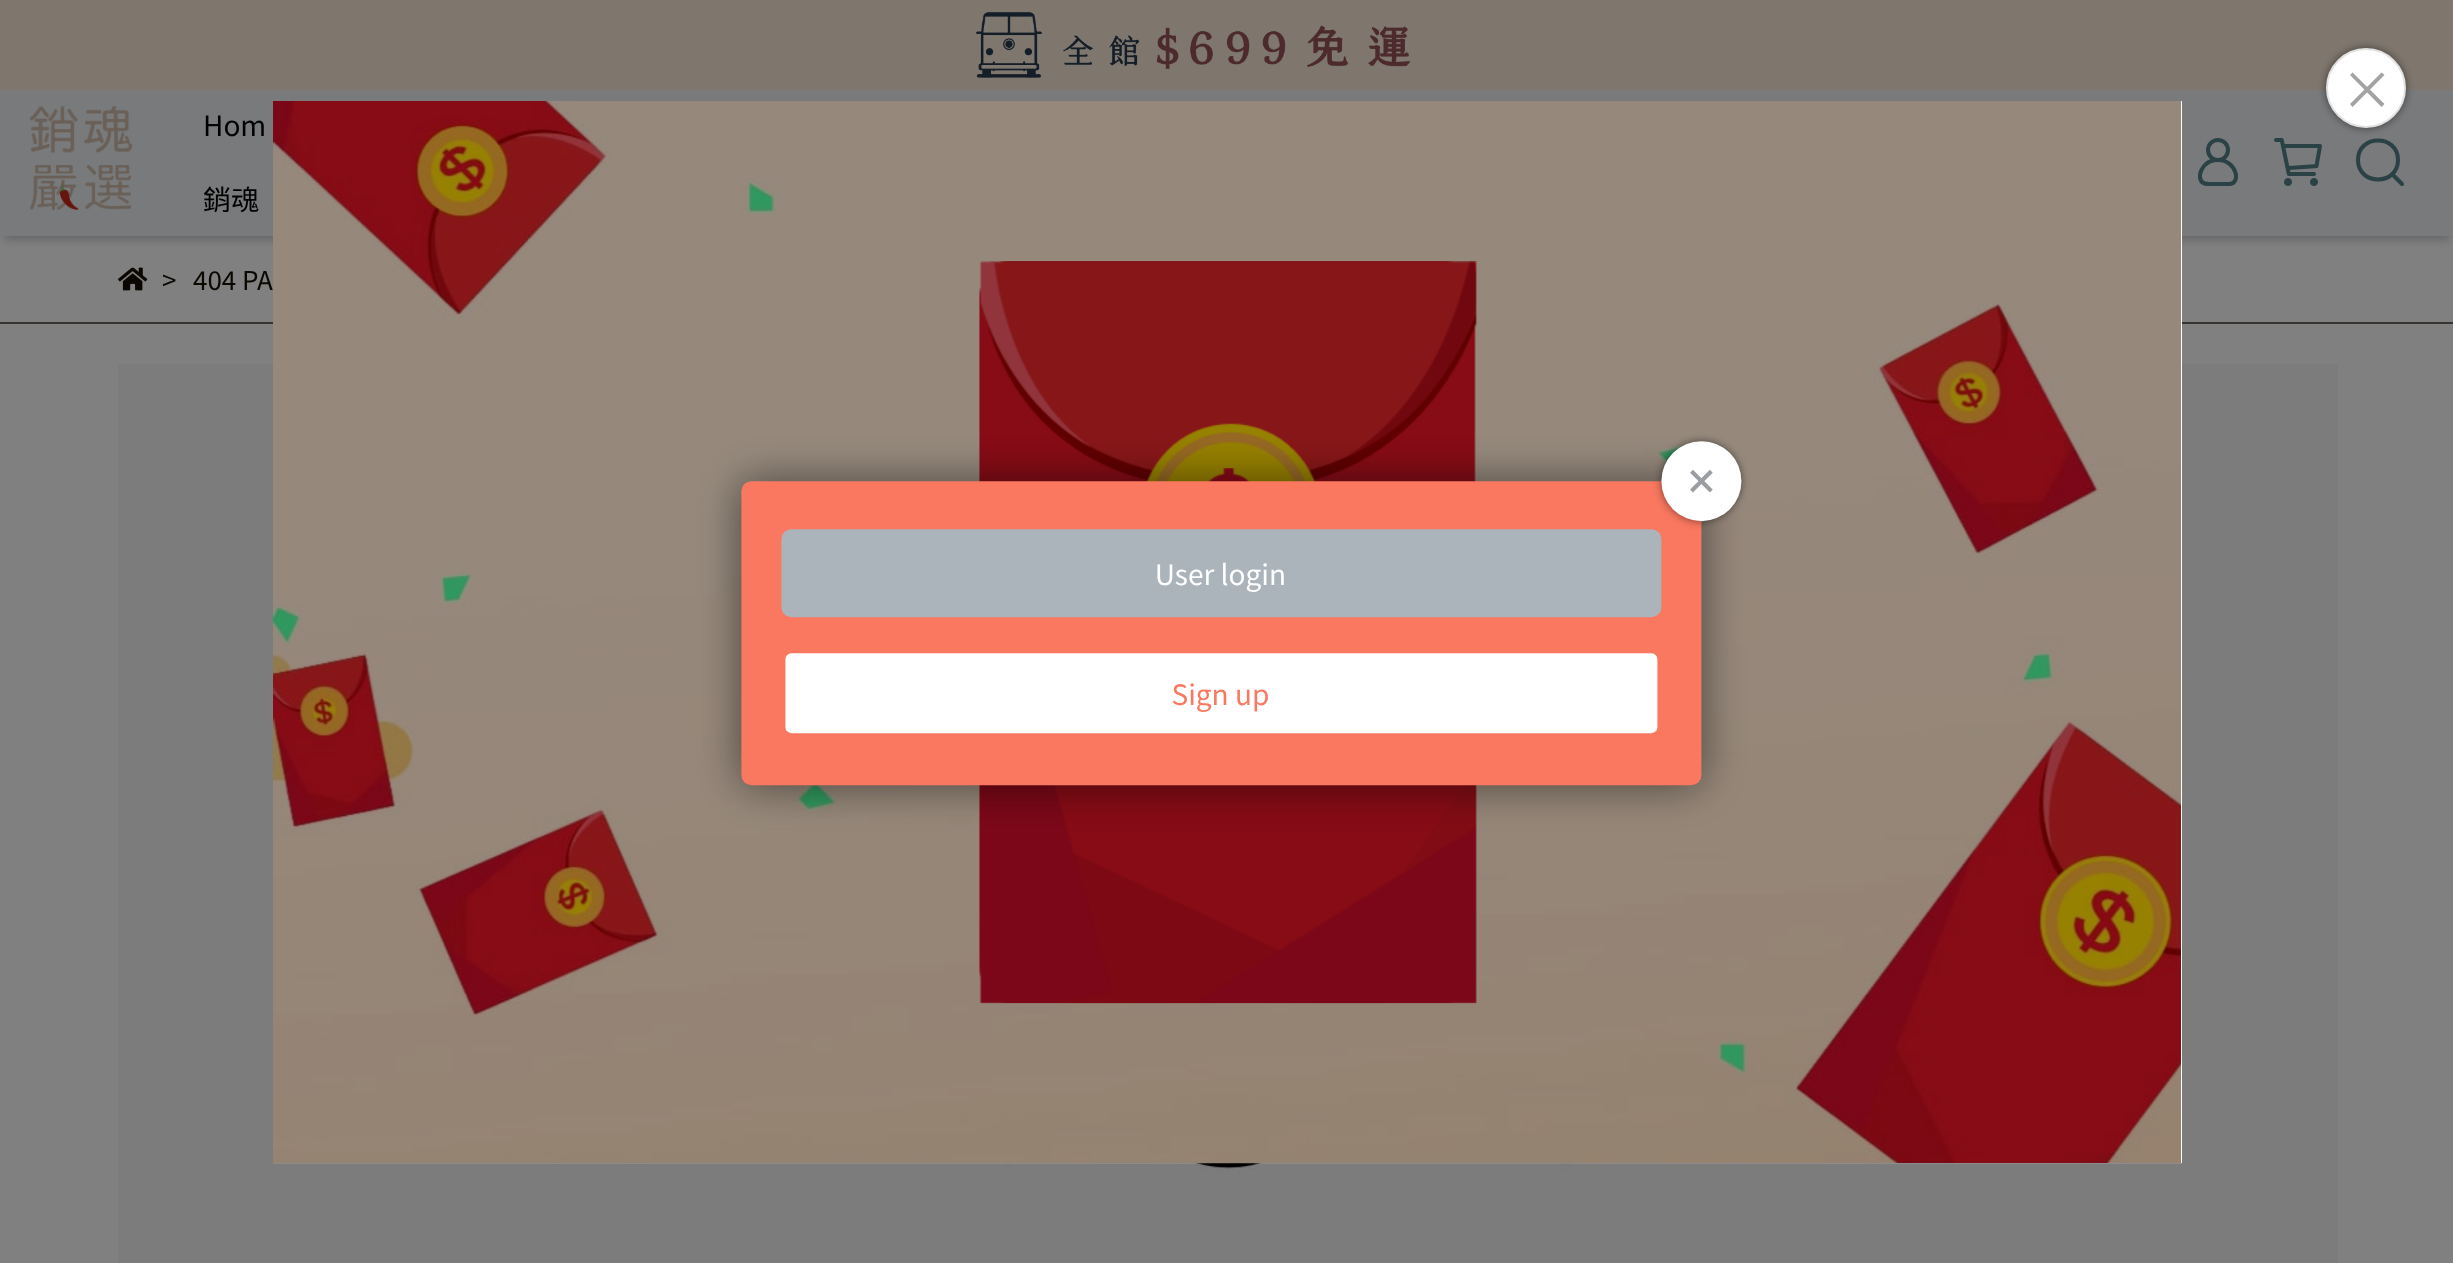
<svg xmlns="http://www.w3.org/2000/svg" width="2453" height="1263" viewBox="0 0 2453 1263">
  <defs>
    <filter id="blur1" x="-50%" y="-200%" width="200%" height="500%"><feGaussianBlur stdDeviation="4"/></filter>
    <clipPath id="clip1"><rect x="2194" y="138" width="48" height="48"/></clipPath>
  </defs>
  <rect width="100%" height="100%" fill="#808080"/>
  <rect x="4" y="102" width="2446" height="138" fill="#000000" fill-opacity="0.2" filter="url(#blur1)"/>
  <image x="0" y="0" width="2453" height="90" href="img1.png"/>
  <rect x="0" y="90" width="2453" height="146" fill="#787a7b"/>
  <image x="30" y="105" width="103" height="105" href="img2.png"/>
  <text x="203" y="136" font-family="Noto Sans TC" font-size="28" fill="#000000">Hom</text>
  <text x="203" y="210" font-family="Noto Sans TC" font-size="28" fill="#000000">銷魂</text>
  <circle cx="2218" cy="150" r="10" fill="none" stroke="#2a4145" stroke-width="4"/>
  <g clip-path="url(#clip1)">
    <path d="M2229 184H2214.5C2211 184 2207.5 184.5 2204.5 183.5C2198.5 181.5 2199.5 174 2201.5 170C2202.5 168 2203.5 166 2205.5 164.5C2208.5 161.5 2213.5 160 2218 160C2237 160 2241.5 184.5 2229 184Z" fill="none" stroke="#2a4145" stroke-width="4"/>
  </g>
  <image x="2274" y="138" width="48" height="48" href="img3.png"/>
  <path d="M2398 160C2398 186 2358 186 2358 160C2358 134 2398 134 2398 160ZM2394 176L2402 184" fill="none" stroke="#2a4145" stroke-width="4" stroke-linecap="round" stroke-linejoin="round"/>
  <rect x="2326" y="48" width="80" height="80" rx="40" fill="#000000" fill-opacity="0.5" filter="url(#blur1)"/>
  <circle cx="2366" cy="88" r="39" fill="#ffffff" stroke="#e2e2e2" stroke-width="2"/>
  <path d="M2352.5 72.5L2384.5 104L2381.5 107L2350 75Z" fill="#a3a3a3"/>
  <path d="M2350 104L2381.5 72.5L2384.5 75L2352.5 107Z" fill="#a3a3a3"/>
  <rect x="0" y="322" width="2453" height="2" fill="#373331"/>
  <image x="118" y="364" width="2220" height="899" href="img6.png"/>
  <image x="273" y="101" width="1909" height="1063" href="img4.png"/>
  <image x="118" y="267" width="30" height="24" href="img5.png"/>
  <text x="162" y="290" font-family="Noto Sans TC" font-size="26" fill="#0b0701">&gt;</text>
  <text x="193" y="290" font-family="Noto Sans TC" font-size="26" fill="#0b0701">404 PA</text>
</svg>
